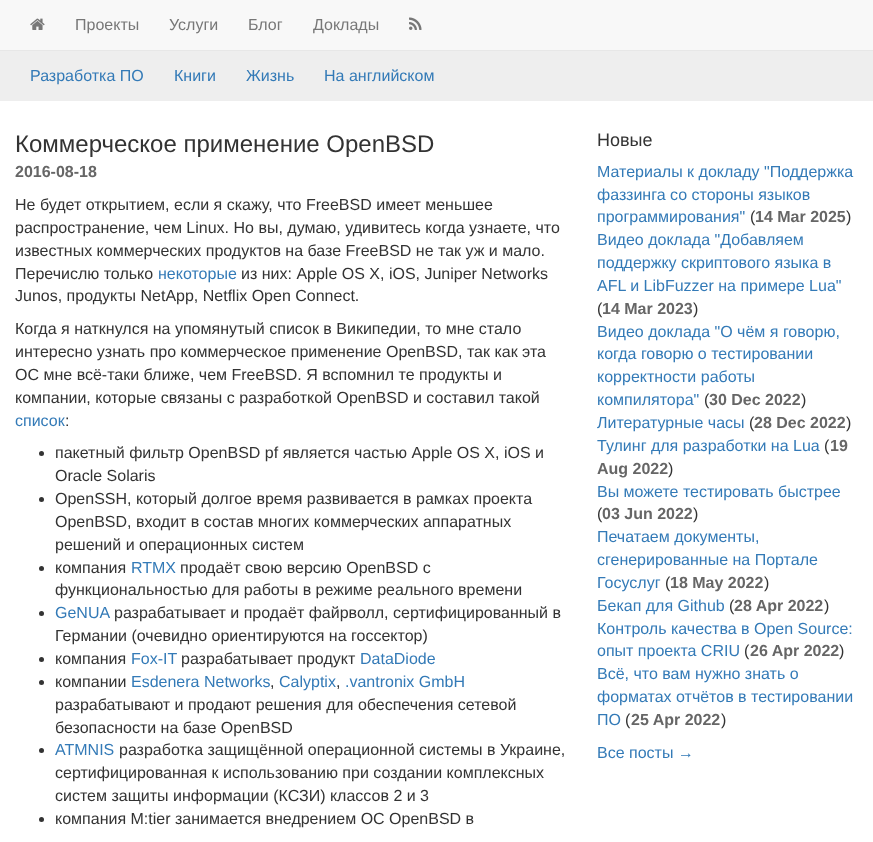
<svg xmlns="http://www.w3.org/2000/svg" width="873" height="842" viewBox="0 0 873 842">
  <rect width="100%" height="100%" fill="#eeeeee"/>
  <rect x="0" y="0" width="873" height="50" fill="#f8f8f8"/>
  <rect x="0" y="50" width="873" height="1" fill="#e7e7e7"/>
  <image x="30" y="18" width="15" height="12" href="img1.png"/>
  <text x="75" y="30" font-family="Liberation Sans" font-size="16" fill="#777777">Проекты</text>
  <text x="169" y="30" font-family="Liberation Sans" font-size="16" fill="#777777">Услуги</text>
  <text x="248" y="30" font-family="Liberation Sans" font-size="16" fill="#777777">Блог</text>
  <text x="313" y="30" font-family="Liberation Sans" font-size="16" fill="#777777">Доклады</text>
  <image x="409" y="17" width="13" height="13" href="img2.png"/>
  <text x="30" y="81" font-family="Liberation Sans" font-size="16" fill="#337ab7">Разработка ПО</text>
  <text x="174" y="81" font-family="Liberation Sans" font-size="16" fill="#337ab7">Книги</text>
  <text x="246" y="81" font-family="Liberation Sans" font-size="16" fill="#337ab7">Жизнь</text>
  <text x="324" y="81" font-family="Liberation Sans" font-size="16" fill="#337ab7">На английском</text>
  <rect x="0" y="101" width="873" height="741" fill="#ffffff"/>
  <text x="15" y="152" font-family="Liberation Sans" font-size="24" fill="#333333">Коммерческое применение OpenBSD</text>
  <text x="15" y="177" font-family="Liberation Sans" font-size="16" font-weight="bold" fill="#666666">2016-08-18</text>
  <text x="15" y="210" font-family="Liberation Sans" font-size="16" fill="#333333">Не будет открытием, если я скажу, что FreeBSD имеет меньшее</text>
  <text x="15" y="233" font-family="Liberation Sans" font-size="16" fill="#333333">распространение, чем Linux. Но вы, думаю, удивитесь когда узнаете, что</text>
  <text x="15" y="256" font-family="Liberation Sans" font-size="16" fill="#333333">известных коммерческих продуктов на базе FreeBSD не так уж и мало.</text>
  <text x="15" y="279" font-family="Liberation Sans" font-size="16" fill="#333333">Перечислю только</text>
  <text x="158" y="279" font-family="Liberation Sans" font-size="16" fill="#337ab7">некоторые</text>
  <text x="241" y="279" font-family="Liberation Sans" font-size="16" fill="#333333">из них: Apple OS X, iOS, Juniper Networks</text>
  <text x="15" y="301" font-family="Liberation Sans" font-size="16" fill="#333333">Junos, продукты NetApp, Netflix Open Connect.</text>
  <text x="15" y="334" font-family="Liberation Sans" font-size="16" fill="#333333">Когда я наткнулся на упомянутый список в Википедии, то мне стало</text>
  <text x="15" y="357" font-family="Liberation Sans" font-size="16" fill="#333333">интересно узнать про коммерческое применение OpenBSD, так как эта</text>
  <text x="15" y="380" font-family="Liberation Sans" font-size="16" fill="#333333">ОС мне всё-таки ближе, чем FreeBSD. Я вспомнил те продукты и</text>
  <text x="15" y="403" font-family="Liberation Sans" font-size="16" fill="#333333">компании, которые связаны с разработкой OpenBSD и составил такой</text>
  <text x="15" y="426" font-family="Liberation Sans" font-size="16" fill="#337ab7">список</text>
  <text x="65" y="426" font-family="Liberation Sans" font-size="16" fill="#333333">:</text>
  <circle cx="41.5" cy="453.5" r="2.5" fill="#333333"/>
  <text x="55" y="458" font-family="Liberation Sans" font-size="16" fill="#333333">пакетный фильтр OpenBSD pf является частью Apple OS X, iOS и</text>
  <text x="55" y="481" font-family="Liberation Sans" font-size="16" fill="#333333">Oracle Solaris</text>
  <circle cx="41.5" cy="499.5" r="2.5" fill="#333333"/>
  <text x="55" y="504" font-family="Liberation Sans" font-size="16" fill="#333333">OpenSSH, который долгое время развивается в рамках проекта</text>
  <text x="55" y="527" font-family="Liberation Sans" font-size="16" fill="#333333">OpenBSD, входит в состав многих коммерческих аппаратных</text>
  <text x="55" y="550" font-family="Liberation Sans" font-size="16" fill="#333333">решений и операционных систем</text>
  <circle cx="41.5" cy="568.5" r="2.5" fill="#333333"/>
  <text x="55" y="573" font-family="Liberation Sans" font-size="16" fill="#333333">компания</text>
  <text x="131" y="573" font-family="Liberation Sans" font-size="16" fill="#337ab7">RTMX</text>
  <text x="180" y="573" font-family="Liberation Sans" font-size="16" fill="#333333">продаёт свою версию OpenBSD c</text>
  <text x="55" y="595" font-family="Liberation Sans" font-size="16" fill="#333333">функциональностью для работы в режиме реального времени</text>
  <circle cx="41.5" cy="613.5" r="2.5" fill="#333333"/>
  <text x="55" y="618" font-family="Liberation Sans" font-size="16" fill="#337ab7">GeNUA</text>
  <text x="114" y="618" font-family="Liberation Sans" font-size="16" fill="#333333">разрабатывает и продаёт файрволл, сертифицированный в</text>
  <text x="55" y="641" font-family="Liberation Sans" font-size="16" fill="#333333">Германии (очевидно ориентируются на госсектор)</text>
  <circle cx="41.5" cy="659.5" r="2.5" fill="#333333"/>
  <text x="55" y="664" font-family="Liberation Sans" font-size="16" fill="#333333">компания</text>
  <text x="131" y="664" font-family="Liberation Sans" font-size="16" fill="#337ab7">Fox-IT</text>
  <text x="181" y="664" font-family="Liberation Sans" font-size="16" fill="#333333">разрабатывает продукт</text>
  <text x="360" y="664" font-family="Liberation Sans" font-size="16" fill="#337ab7">DataDiode</text>
  <circle cx="41.5" cy="682.5" r="2.5" fill="#333333"/>
  <text x="55" y="687" font-family="Liberation Sans" font-size="16" fill="#333333">компании</text>
  <text x="131" y="687" font-family="Liberation Sans" font-size="16" fill="#337ab7">Esdenera Networks</text>
  <text x="279" y="687" font-family="Liberation Sans" font-size="16" fill="#337ab7">Calyptix</text>
  <text x="345" y="687" font-family="Liberation Sans" font-size="16" fill="#337ab7">.vantronix GmbH</text>
  <text x="270" y="687" font-family="Liberation Sans" font-size="16" fill="#333333">,</text>
  <text x="336" y="687" font-family="Liberation Sans" font-size="16" fill="#333333">,</text>
  <text x="55" y="710" font-family="Liberation Sans" font-size="16" fill="#333333">разрабатывают и продают решения для обеспечения сетевой</text>
  <text x="55" y="733" font-family="Liberation Sans" font-size="16" fill="#333333">безопасности на базе OpenBSD</text>
  <circle cx="41.5" cy="750.5" r="2.5" fill="#333333"/>
  <text x="55" y="755" font-family="Liberation Sans" font-size="16" fill="#337ab7">ATMNIS</text>
  <text x="119" y="755" font-family="Liberation Sans" font-size="16" fill="#333333">разработка защищённой операционной системы в Украине,</text>
  <text x="55" y="778" font-family="Liberation Sans" font-size="16" fill="#333333">сертифицированная к использованию при создании комплексных</text>
  <text x="55" y="801" font-family="Liberation Sans" font-size="16" fill="#333333">систем защиты информации (КСЗИ) классов 2 и 3</text>
  <circle cx="41.5" cy="819.5" r="2.5" fill="#333333"/>
  <text x="55" y="824" font-family="Liberation Sans" font-size="16" fill="#333333">компания M:tier занимается внедрением ОС OpenBSD в</text>
  <text x="597" y="146" font-family="Liberation Sans" font-size="18" fill="#333333">Новые</text>
  <text x="597" y="177" font-family="Liberation Sans" font-size="16" fill="#337ab7">Материалы к докладу "Поддержка</text>
  <text x="597" y="200" font-family="Liberation Sans" font-size="16" fill="#337ab7">фаззинга со стороны языков</text>
  <text x="597" y="222" font-family="Liberation Sans" font-size="16" fill="#337ab7">программирования"</text>
  <text x="750" y="222" font-family="Liberation Sans" font-size="16" fill="#333333">(</text>
  <text x="755" y="222" font-family="Liberation Sans" font-size="16" font-weight="bold" fill="#666666">14 Mar 2025</text>
  <text x="846" y="222" font-family="Liberation Sans" font-size="16" fill="#333333">)</text>
  <text x="597" y="245" font-family="Liberation Sans" font-size="16" fill="#337ab7">Видео доклада "Добавляем</text>
  <text x="597" y="268" font-family="Liberation Sans" font-size="16" fill="#337ab7">поддержку скриптового языка в</text>
  <text x="597" y="291" font-family="Liberation Sans" font-size="16" fill="#337ab7">AFL и LibFuzzer на примере Lua"</text>
  <text x="597" y="314" font-family="Liberation Sans" font-size="16" fill="#333333">(</text>
  <text x="602" y="314" font-family="Liberation Sans" font-size="16" font-weight="bold" fill="#666666">14 Mar 2023</text>
  <text x="693" y="314" font-family="Liberation Sans" font-size="16" fill="#333333">)</text>
  <text x="597" y="337" font-family="Liberation Sans" font-size="16" fill="#337ab7">Видео доклада "О чём я говорю,</text>
  <text x="597" y="359" font-family="Liberation Sans" font-size="16" fill="#337ab7">когда говорю о тестировании</text>
  <text x="597" y="382" font-family="Liberation Sans" font-size="16" fill="#337ab7">корректности работы</text>
  <text x="597" y="405" font-family="Liberation Sans" font-size="16" fill="#337ab7">компилятора"</text>
  <text x="704" y="405" font-family="Liberation Sans" font-size="16" fill="#333333">(</text>
  <text x="709" y="405" font-family="Liberation Sans" font-size="16" font-weight="bold" fill="#666666">30 Dec 2022</text>
  <text x="801" y="405" font-family="Liberation Sans" font-size="16" fill="#333333">)</text>
  <text x="597" y="428" font-family="Liberation Sans" font-size="16" fill="#337ab7">Литературные часы</text>
  <text x="749" y="428" font-family="Liberation Sans" font-size="16" fill="#333333">(</text>
  <text x="754" y="428" font-family="Liberation Sans" font-size="16" font-weight="bold" fill="#666666">28 Dec 2022</text>
  <text x="846" y="428" font-family="Liberation Sans" font-size="16" fill="#333333">)</text>
  <text x="597" y="451" font-family="Liberation Sans" font-size="16" fill="#337ab7">Тулинг для разработки на Lua</text>
  <text x="824" y="451" font-family="Liberation Sans" font-size="16" fill="#333333">(</text>
  <text x="830" y="451" font-family="Liberation Sans" font-size="16" font-weight="bold" fill="#666666">19</text>
  <text x="597" y="474" font-family="Liberation Sans" font-size="16" font-weight="bold" fill="#666666">Aug 2022</text>
  <text x="668" y="474" font-family="Liberation Sans" font-size="16" fill="#333333">)</text>
  <text x="597" y="497" font-family="Liberation Sans" font-size="16" fill="#337ab7">Вы можете тестировать быстрее</text>
  <text x="597" y="519" font-family="Liberation Sans" font-size="16" fill="#333333">(</text>
  <text x="602" y="519" font-family="Liberation Sans" font-size="16" font-weight="bold" fill="#666666">03 Jun 2022</text>
  <text x="693" y="519" font-family="Liberation Sans" font-size="16" fill="#333333">)</text>
  <text x="597" y="542" font-family="Liberation Sans" font-size="16" fill="#337ab7">Печатаем документы,</text>
  <text x="597" y="565" font-family="Liberation Sans" font-size="16" fill="#337ab7">сгенерированные на Портале</text>
  <text x="597" y="588" font-family="Liberation Sans" font-size="16" fill="#337ab7">Госуслуг</text>
  <text x="665" y="588" font-family="Liberation Sans" font-size="16" fill="#333333">(</text>
  <text x="670" y="588" font-family="Liberation Sans" font-size="16" font-weight="bold" fill="#666666">18 May 2022</text>
  <text x="764" y="588" font-family="Liberation Sans" font-size="16" fill="#333333">)</text>
  <text x="597" y="611" font-family="Liberation Sans" font-size="16" fill="#337ab7">Бекап для Github</text>
  <text x="729" y="611" font-family="Liberation Sans" font-size="16" fill="#333333">(</text>
  <text x="734" y="611" font-family="Liberation Sans" font-size="16" font-weight="bold" fill="#666666">28 Apr 2022</text>
  <text x="824" y="611" font-family="Liberation Sans" font-size="16" fill="#333333">)</text>
  <text x="597" y="634" font-family="Liberation Sans" font-size="16" fill="#337ab7">Контроль качества в Open Source:</text>
  <text x="597" y="656" font-family="Liberation Sans" font-size="16" fill="#337ab7">опыт проекта CRIU</text>
  <text x="744" y="656" font-family="Liberation Sans" font-size="16" fill="#333333">(</text>
  <text x="750" y="656" font-family="Liberation Sans" font-size="16" font-weight="bold" fill="#666666">26 Apr 2022</text>
  <text x="839" y="656" font-family="Liberation Sans" font-size="16" fill="#333333">)</text>
  <text x="597" y="679" font-family="Liberation Sans" font-size="16" fill="#337ab7">Всё, что вам нужно знать о</text>
  <text x="597" y="702" font-family="Liberation Sans" font-size="16" fill="#337ab7">форматах отчётов в тестировании</text>
  <text x="597" y="725" font-family="Liberation Sans" font-size="16" fill="#337ab7">ПО</text>
  <text x="625" y="725" font-family="Liberation Sans" font-size="16" fill="#333333">(</text>
  <text x="631" y="725" font-family="Liberation Sans" font-size="16" font-weight="bold" fill="#666666">25 Apr 2022</text>
  <text x="721" y="725" font-family="Liberation Sans" font-size="16" fill="#333333">)</text>
  <text x="597" y="758" font-family="Liberation Sans" font-size="16" fill="#337ab7">Все посты →</text>
</svg>
